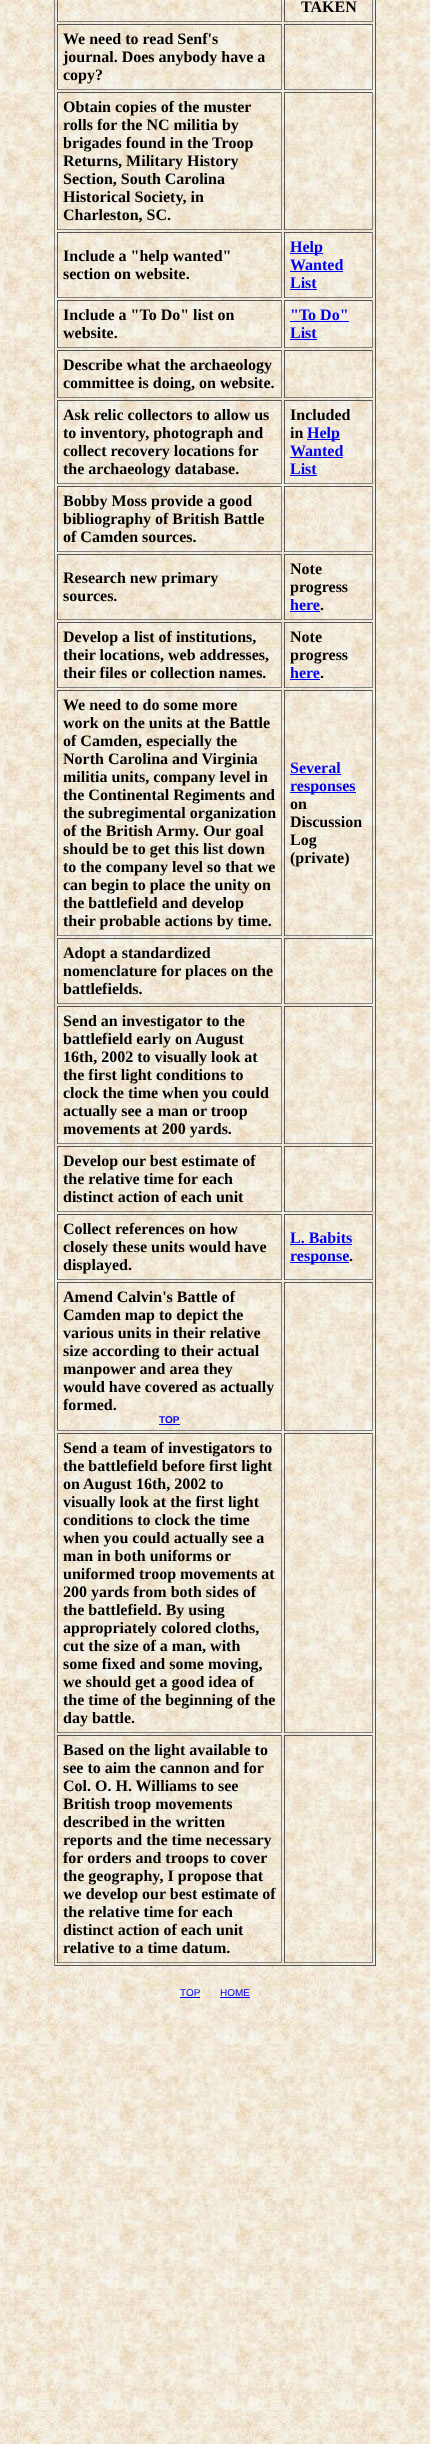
<svg xmlns="http://www.w3.org/2000/svg" width="430" height="2444" viewBox="0 0 430 2444">
  <rect width="100%" height="100%" fill="#ffffff"/>
  <image x="0" y="0" width="430" height="2444" href="img1.png"/>
  <rect x="375" y="0" width="1" height="1966" fill="#555555"/>
  <rect x="54" y="1965" width="322" height="1" fill="#555555"/>
  <rect x="54" y="0" width="1" height="1966" fill="#808080"/>
  <rect x="281" y="0" width="1" height="22" fill="#808080"/>
  <rect x="57" y="21" width="225" height="1" fill="#808080"/>
  <rect x="57" y="0" width="1" height="22" fill="#555555"/>
  <rect x="372" y="0" width="1" height="22" fill="#808080"/>
  <rect x="284" y="21" width="89" height="1" fill="#808080"/>
  <rect x="284" y="0" width="1" height="22" fill="#555555"/>
  <text x="301" y="12" font-family="Liberation Serif" font-size="16" font-weight="bold" fill="#000000">TAKEN</text>
  <rect x="57" y="24" width="225" height="1" fill="#555555"/>
  <rect x="281" y="24" width="1" height="66" fill="#808080"/>
  <rect x="57" y="89" width="225" height="1" fill="#808080"/>
  <rect x="57" y="24" width="1" height="66" fill="#555555"/>
  <text x="63" y="44" font-family="Liberation Serif" font-size="16" font-weight="bold" fill="#000000">We need to read Senf's</text>
  <text x="63" y="62" font-family="Liberation Serif" font-size="16" font-weight="bold" fill="#000000">journal. Does anybody have a</text>
  <text x="63" y="80" font-family="Liberation Serif" font-size="16" font-weight="bold" fill="#000000">copy?</text>
  <rect x="284" y="24" width="89" height="1" fill="#555555"/>
  <rect x="372" y="24" width="1" height="66" fill="#808080"/>
  <rect x="284" y="89" width="89" height="1" fill="#808080"/>
  <rect x="284" y="24" width="1" height="66" fill="#555555"/>
  <rect x="57" y="92" width="225" height="1" fill="#555555"/>
  <rect x="281" y="92" width="1" height="138" fill="#808080"/>
  <rect x="57" y="229" width="225" height="1" fill="#808080"/>
  <rect x="57" y="92" width="1" height="138" fill="#555555"/>
  <text x="63" y="112" font-family="Liberation Serif" font-size="16" font-weight="bold" fill="#000000">Obtain copies of the muster</text>
  <text x="63" y="130" font-family="Liberation Serif" font-size="16" font-weight="bold" fill="#000000">rolls for the NC militia by</text>
  <text x="63" y="148" font-family="Liberation Serif" font-size="16" font-weight="bold" fill="#000000">brigades found in the Troop</text>
  <text x="63" y="166" font-family="Liberation Serif" font-size="16" font-weight="bold" fill="#000000">Returns, Military History</text>
  <text x="63" y="184" font-family="Liberation Serif" font-size="16" font-weight="bold" fill="#000000">Section, South Carolina</text>
  <text x="63" y="202" font-family="Liberation Serif" font-size="16" font-weight="bold" fill="#000000">Historical Society, in</text>
  <text x="63" y="220" font-family="Liberation Serif" font-size="16" font-weight="bold" fill="#000000">Charleston, SC.</text>
  <rect x="284" y="92" width="89" height="1" fill="#555555"/>
  <rect x="372" y="92" width="1" height="138" fill="#808080"/>
  <rect x="284" y="229" width="89" height="1" fill="#808080"/>
  <rect x="284" y="92" width="1" height="138" fill="#555555"/>
  <rect x="57" y="232" width="225" height="1" fill="#555555"/>
  <rect x="281" y="232" width="1" height="66" fill="#808080"/>
  <rect x="57" y="297" width="225" height="1" fill="#808080"/>
  <rect x="57" y="232" width="1" height="66" fill="#555555"/>
  <text x="63" y="261" font-family="Liberation Serif" font-size="16" font-weight="bold" fill="#000000">Include a "help wanted"</text>
  <text x="63" y="279" font-family="Liberation Serif" font-size="16" font-weight="bold" fill="#000000">section on website.</text>
  <rect x="284" y="232" width="89" height="1" fill="#555555"/>
  <rect x="372" y="232" width="1" height="66" fill="#808080"/>
  <rect x="284" y="297" width="89" height="1" fill="#808080"/>
  <rect x="284" y="232" width="1" height="66" fill="#555555"/>
  <rect x="290" y="253" width="33" height="1" fill="#0000ee"/>
  <text x="290" y="252" font-family="Liberation Serif" font-size="16" font-weight="bold" fill="#0000ee">Help</text>
  <text x="290" y="270" font-family="Liberation Serif" font-size="16" font-weight="bold" fill="#0000ee">Wanted</text>
  <rect x="290" y="271" width="53" height="1" fill="#0000ee"/>
  <text x="290" y="288" font-family="Liberation Serif" font-size="16" font-weight="bold" fill="#0000ee">List</text>
  <rect x="290" y="289" width="27" height="1" fill="#0000ee"/>
  <rect x="57" y="300" width="225" height="1" fill="#555555"/>
  <rect x="281" y="300" width="1" height="48" fill="#808080"/>
  <rect x="57" y="347" width="225" height="1" fill="#808080"/>
  <rect x="57" y="300" width="1" height="48" fill="#555555"/>
  <text x="63" y="320" font-family="Liberation Serif" font-size="16" font-weight="bold" fill="#000000">Include a "To Do" list on</text>
  <text x="63" y="338" font-family="Liberation Serif" font-size="16" font-weight="bold" fill="#000000">website.</text>
  <rect x="284" y="300" width="89" height="1" fill="#555555"/>
  <rect x="372" y="300" width="1" height="48" fill="#808080"/>
  <rect x="284" y="347" width="89" height="1" fill="#808080"/>
  <rect x="284" y="300" width="1" height="48" fill="#555555"/>
  <text x="290" y="320" font-family="Liberation Serif" font-size="16" font-weight="bold" fill="#0000ee">"To Do"</text>
  <rect x="290" y="321" width="59" height="1" fill="#0000ee"/>
  <text x="290" y="338" font-family="Liberation Serif" font-size="16" font-weight="bold" fill="#0000ee">List</text>
  <rect x="290" y="339" width="27" height="1" fill="#0000ee"/>
  <rect x="57" y="350" width="225" height="1" fill="#555555"/>
  <rect x="281" y="350" width="1" height="48" fill="#808080"/>
  <rect x="57" y="397" width="225" height="1" fill="#808080"/>
  <rect x="57" y="350" width="1" height="48" fill="#555555"/>
  <text x="63" y="370" font-family="Liberation Serif" font-size="16" font-weight="bold" fill="#000000">Describe what the archaeology</text>
  <text x="63" y="388" font-family="Liberation Serif" font-size="16" font-weight="bold" fill="#000000">committee is doing, on website.</text>
  <rect x="284" y="350" width="89" height="1" fill="#555555"/>
  <rect x="372" y="350" width="1" height="48" fill="#808080"/>
  <rect x="284" y="397" width="89" height="1" fill="#808080"/>
  <rect x="284" y="350" width="1" height="48" fill="#555555"/>
  <rect x="57" y="400" width="225" height="1" fill="#555555"/>
  <rect x="281" y="400" width="1" height="84" fill="#808080"/>
  <rect x="57" y="483" width="225" height="1" fill="#808080"/>
  <rect x="57" y="400" width="1" height="84" fill="#555555"/>
  <text x="63" y="420" font-family="Liberation Serif" font-size="16" font-weight="bold" fill="#000000">Ask relic collectors to allow us</text>
  <text x="63" y="438" font-family="Liberation Serif" font-size="16" font-weight="bold" fill="#000000">to inventory, photograph and</text>
  <text x="63" y="456" font-family="Liberation Serif" font-size="16" font-weight="bold" fill="#000000">collect recovery locations for</text>
  <text x="63" y="474" font-family="Liberation Serif" font-size="16" font-weight="bold" fill="#000000">the archaeology database.</text>
  <rect x="284" y="400" width="89" height="1" fill="#555555"/>
  <rect x="372" y="400" width="1" height="84" fill="#808080"/>
  <rect x="284" y="483" width="89" height="1" fill="#808080"/>
  <rect x="284" y="400" width="1" height="84" fill="#555555"/>
  <text x="290" y="420" font-family="Liberation Serif" font-size="16" font-weight="bold" fill="#000000">Included</text>
  <text x="290" y="438" font-family="Liberation Serif" font-size="16" font-weight="bold" fill="#000000">in</text>
  <rect x="307" y="439" width="33" height="1" fill="#0000ee"/>
  <text x="307" y="438" font-family="Liberation Serif" font-size="16" font-weight="bold" fill="#0000ee">Help</text>
  <text x="290" y="456" font-family="Liberation Serif" font-size="16" font-weight="bold" fill="#0000ee">Wanted</text>
  <rect x="290" y="457" width="53" height="1" fill="#0000ee"/>
  <text x="290" y="474" font-family="Liberation Serif" font-size="16" font-weight="bold" fill="#0000ee">List</text>
  <rect x="290" y="475" width="27" height="1" fill="#0000ee"/>
  <rect x="57" y="486" width="225" height="1" fill="#555555"/>
  <rect x="281" y="486" width="1" height="66" fill="#808080"/>
  <rect x="57" y="551" width="225" height="1" fill="#808080"/>
  <rect x="57" y="486" width="1" height="66" fill="#555555"/>
  <text x="63" y="506" font-family="Liberation Serif" font-size="16" font-weight="bold" fill="#000000">Bobby Moss provide a good</text>
  <text x="63" y="524" font-family="Liberation Serif" font-size="16" font-weight="bold" fill="#000000">bibliography of British Battle</text>
  <text x="63" y="542" font-family="Liberation Serif" font-size="16" font-weight="bold" fill="#000000">of Camden sources.</text>
  <rect x="284" y="486" width="89" height="1" fill="#555555"/>
  <rect x="372" y="486" width="1" height="66" fill="#808080"/>
  <rect x="284" y="551" width="89" height="1" fill="#808080"/>
  <rect x="284" y="486" width="1" height="66" fill="#555555"/>
  <rect x="57" y="554" width="225" height="1" fill="#555555"/>
  <rect x="281" y="554" width="1" height="66" fill="#808080"/>
  <rect x="57" y="619" width="225" height="1" fill="#808080"/>
  <rect x="57" y="554" width="1" height="66" fill="#555555"/>
  <text x="63" y="583" font-family="Liberation Serif" font-size="16" font-weight="bold" fill="#000000">Research new primary</text>
  <text x="63" y="601" font-family="Liberation Serif" font-size="16" font-weight="bold" fill="#000000">sources.</text>
  <rect x="284" y="554" width="89" height="1" fill="#555555"/>
  <rect x="372" y="554" width="1" height="66" fill="#808080"/>
  <rect x="284" y="619" width="89" height="1" fill="#808080"/>
  <rect x="284" y="554" width="1" height="66" fill="#555555"/>
  <text x="290" y="574" font-family="Liberation Serif" font-size="16" font-weight="bold" fill="#000000">Note</text>
  <text x="290" y="592" font-family="Liberation Serif" font-size="16" font-weight="bold" fill="#000000">progress</text>
  <text x="290" y="610" font-family="Liberation Serif" font-size="16" font-weight="bold" fill="#0000ee">here</text>
  <text x="320" y="610" font-family="Liberation Serif" font-size="16" font-weight="bold" fill="#000000">.</text>
  <rect x="290" y="611" width="30" height="1" fill="#0000ee"/>
  <rect x="57" y="622" width="225" height="1" fill="#555555"/>
  <rect x="281" y="622" width="1" height="66" fill="#808080"/>
  <rect x="57" y="687" width="225" height="1" fill="#808080"/>
  <rect x="57" y="622" width="1" height="66" fill="#555555"/>
  <text x="63" y="642" font-family="Liberation Serif" font-size="16" font-weight="bold" fill="#000000">Develop a list of institutions,</text>
  <text x="63" y="660" font-family="Liberation Serif" font-size="16" font-weight="bold" fill="#000000">their locations, web addresses,</text>
  <text x="63" y="678" font-family="Liberation Serif" font-size="16" font-weight="bold" fill="#000000">their files or collection names.</text>
  <rect x="284" y="622" width="89" height="1" fill="#555555"/>
  <rect x="372" y="622" width="1" height="66" fill="#808080"/>
  <rect x="284" y="687" width="89" height="1" fill="#808080"/>
  <rect x="284" y="622" width="1" height="66" fill="#555555"/>
  <text x="290" y="642" font-family="Liberation Serif" font-size="16" font-weight="bold" fill="#000000">Note</text>
  <text x="290" y="660" font-family="Liberation Serif" font-size="16" font-weight="bold" fill="#000000">progress</text>
  <text x="290" y="678" font-family="Liberation Serif" font-size="16" font-weight="bold" fill="#0000ee">here</text>
  <text x="320" y="678" font-family="Liberation Serif" font-size="16" font-weight="bold" fill="#000000">.</text>
  <rect x="290" y="679" width="30" height="1" fill="#0000ee"/>
  <rect x="57" y="690" width="225" height="1" fill="#555555"/>
  <rect x="281" y="690" width="1" height="246" fill="#808080"/>
  <rect x="57" y="935" width="225" height="1" fill="#808080"/>
  <rect x="57" y="690" width="1" height="246" fill="#555555"/>
  <text x="63" y="710" font-family="Liberation Serif" font-size="16" font-weight="bold" fill="#000000">We need to do some more</text>
  <text x="63" y="728" font-family="Liberation Serif" font-size="16" font-weight="bold" fill="#000000">work on the units at the Battle</text>
  <text x="63" y="746" font-family="Liberation Serif" font-size="16" font-weight="bold" fill="#000000">of Camden, especially the</text>
  <text x="63" y="764" font-family="Liberation Serif" font-size="16" font-weight="bold" fill="#000000">North Carolina and Virginia</text>
  <text x="63" y="782" font-family="Liberation Serif" font-size="16" font-weight="bold" fill="#000000">militia units, company level in</text>
  <text x="63" y="800" font-family="Liberation Serif" font-size="16" font-weight="bold" fill="#000000">the Continental Regiments and</text>
  <text x="63" y="818" font-family="Liberation Serif" font-size="16" font-weight="bold" fill="#000000">the subregimental organization</text>
  <text x="63" y="836" font-family="Liberation Serif" font-size="16" font-weight="bold" fill="#000000">of the British Army. Our goal</text>
  <text x="63" y="854" font-family="Liberation Serif" font-size="16" font-weight="bold" fill="#000000">should be to get this list down</text>
  <text x="63" y="872" font-family="Liberation Serif" font-size="16" font-weight="bold" fill="#000000">to the company level so that we</text>
  <text x="63" y="890" font-family="Liberation Serif" font-size="16" font-weight="bold" fill="#000000">can begin to place the unity on</text>
  <text x="63" y="908" font-family="Liberation Serif" font-size="16" font-weight="bold" fill="#000000">the battlefield and develop</text>
  <text x="63" y="926" font-family="Liberation Serif" font-size="16" font-weight="bold" fill="#000000">their probable actions by time.</text>
  <rect x="284" y="690" width="89" height="1" fill="#555555"/>
  <rect x="372" y="690" width="1" height="246" fill="#808080"/>
  <rect x="284" y="935" width="89" height="1" fill="#808080"/>
  <rect x="284" y="690" width="1" height="246" fill="#555555"/>
  <text x="290" y="773" font-family="Liberation Serif" font-size="16" font-weight="bold" fill="#0000ee">Several</text>
  <rect x="290" y="774" width="51" height="1" fill="#0000ee"/>
  <rect x="290" y="792" width="66" height="1" fill="#0000ee"/>
  <text x="290" y="791" font-family="Liberation Serif" font-size="16" font-weight="bold" fill="#0000ee">responses</text>
  <text x="290" y="809" font-family="Liberation Serif" font-size="16" font-weight="bold" fill="#000000">on</text>
  <text x="290" y="827" font-family="Liberation Serif" font-size="16" font-weight="bold" fill="#000000">Discussion</text>
  <text x="290" y="845" font-family="Liberation Serif" font-size="16" font-weight="bold" fill="#000000">Log</text>
  <text x="290" y="863" font-family="Liberation Serif" font-size="16" font-weight="bold" fill="#000000">(private)</text>
  <rect x="57" y="938" width="225" height="1" fill="#555555"/>
  <rect x="281" y="938" width="1" height="66" fill="#808080"/>
  <rect x="57" y="1003" width="225" height="1" fill="#808080"/>
  <rect x="57" y="938" width="1" height="66" fill="#555555"/>
  <text x="63" y="958" font-family="Liberation Serif" font-size="16" font-weight="bold" fill="#000000">Adopt a standardized</text>
  <text x="63" y="976" font-family="Liberation Serif" font-size="16" font-weight="bold" fill="#000000">nomenclature for places on the</text>
  <text x="63" y="994" font-family="Liberation Serif" font-size="16" font-weight="bold" fill="#000000">battlefields.</text>
  <rect x="284" y="938" width="89" height="1" fill="#555555"/>
  <rect x="372" y="938" width="1" height="66" fill="#808080"/>
  <rect x="284" y="1003" width="89" height="1" fill="#808080"/>
  <rect x="284" y="938" width="1" height="66" fill="#555555"/>
  <rect x="57" y="1006" width="225" height="1" fill="#555555"/>
  <rect x="281" y="1006" width="1" height="138" fill="#808080"/>
  <rect x="57" y="1143" width="225" height="1" fill="#808080"/>
  <rect x="57" y="1006" width="1" height="138" fill="#555555"/>
  <text x="63" y="1026" font-family="Liberation Serif" font-size="16" font-weight="bold" fill="#000000">Send an investigator to the</text>
  <text x="63" y="1044" font-family="Liberation Serif" font-size="16" font-weight="bold" fill="#000000">battlefield early on August</text>
  <text x="63" y="1062" font-family="Liberation Serif" font-size="16" font-weight="bold" fill="#000000">16th, 2002 to visually look at</text>
  <text x="63" y="1080" font-family="Liberation Serif" font-size="16" font-weight="bold" fill="#000000">the first light conditions to</text>
  <text x="63" y="1098" font-family="Liberation Serif" font-size="16" font-weight="bold" fill="#000000">clock the time when you could</text>
  <text x="63" y="1116" font-family="Liberation Serif" font-size="16" font-weight="bold" fill="#000000">actually see a man or troop</text>
  <text x="63" y="1134" font-family="Liberation Serif" font-size="16" font-weight="bold" fill="#000000">movements at 200 yards.</text>
  <rect x="284" y="1006" width="89" height="1" fill="#555555"/>
  <rect x="372" y="1006" width="1" height="138" fill="#808080"/>
  <rect x="284" y="1143" width="89" height="1" fill="#808080"/>
  <rect x="284" y="1006" width="1" height="138" fill="#555555"/>
  <rect x="57" y="1146" width="225" height="1" fill="#555555"/>
  <rect x="281" y="1146" width="1" height="66" fill="#808080"/>
  <rect x="57" y="1211" width="225" height="1" fill="#808080"/>
  <rect x="57" y="1146" width="1" height="66" fill="#555555"/>
  <text x="63" y="1166" font-family="Liberation Serif" font-size="16" font-weight="bold" fill="#000000">Develop our best estimate of</text>
  <text x="63" y="1184" font-family="Liberation Serif" font-size="16" font-weight="bold" fill="#000000">the relative time for each</text>
  <text x="63" y="1202" font-family="Liberation Serif" font-size="16" font-weight="bold" fill="#000000">distinct action of each unit</text>
  <rect x="284" y="1146" width="89" height="1" fill="#555555"/>
  <rect x="372" y="1146" width="1" height="66" fill="#808080"/>
  <rect x="284" y="1211" width="89" height="1" fill="#808080"/>
  <rect x="284" y="1146" width="1" height="66" fill="#555555"/>
  <rect x="57" y="1214" width="225" height="1" fill="#555555"/>
  <rect x="281" y="1214" width="1" height="66" fill="#808080"/>
  <rect x="57" y="1279" width="225" height="1" fill="#808080"/>
  <rect x="57" y="1214" width="1" height="66" fill="#555555"/>
  <text x="63" y="1234" font-family="Liberation Serif" font-size="16" font-weight="bold" fill="#000000">Collect references on how</text>
  <text x="63" y="1252" font-family="Liberation Serif" font-size="16" font-weight="bold" fill="#000000">closely these units would have</text>
  <text x="63" y="1270" font-family="Liberation Serif" font-size="16" font-weight="bold" fill="#000000">displayed.</text>
  <rect x="284" y="1214" width="89" height="1" fill="#555555"/>
  <rect x="372" y="1214" width="1" height="66" fill="#808080"/>
  <rect x="284" y="1279" width="89" height="1" fill="#808080"/>
  <rect x="284" y="1214" width="1" height="66" fill="#555555"/>
  <text x="290" y="1243" font-family="Liberation Serif" font-size="16" font-weight="bold" fill="#0000ee">L. Babits</text>
  <rect x="290" y="1244" width="62" height="1" fill="#0000ee"/>
  <rect x="290" y="1262" width="59" height="1" fill="#0000ee"/>
  <text x="290" y="1261" font-family="Liberation Serif" font-size="16" font-weight="bold" fill="#0000ee">response</text>
  <text x="349" y="1261" font-family="Liberation Serif" font-size="16" font-weight="bold" fill="#000000">.</text>
  <rect x="57" y="1282" width="225" height="1" fill="#555555"/>
  <rect x="281" y="1282" width="1" height="149" fill="#808080"/>
  <rect x="57" y="1430" width="225" height="1" fill="#808080"/>
  <rect x="57" y="1282" width="1" height="149" fill="#555555"/>
  <text x="63" y="1302" font-family="Liberation Serif" font-size="16" font-weight="bold" fill="#000000">Amend Calvin's Battle of</text>
  <text x="63" y="1320" font-family="Liberation Serif" font-size="16" font-weight="bold" fill="#000000">Camden map to depict the</text>
  <text x="63" y="1338" font-family="Liberation Serif" font-size="16" font-weight="bold" fill="#000000">various units in their relative</text>
  <text x="63" y="1356" font-family="Liberation Serif" font-size="16" font-weight="bold" fill="#000000">size according to their actual</text>
  <text x="63" y="1374" font-family="Liberation Serif" font-size="16" font-weight="bold" fill="#000000">manpower and area they</text>
  <text x="63" y="1392" font-family="Liberation Serif" font-size="16" font-weight="bold" fill="#000000">would have covered as actually</text>
  <text x="63" y="1410" font-family="Liberation Serif" font-size="16" font-weight="bold" fill="#000000">formed.</text>
  <text x="159" y="1423" font-family="Liberation Sans" font-size="10" font-weight="bold" fill="#0000ee">TOP</text>
  <rect x="159" y="1424" width="21" height="1" fill="#0000ee"/>
  <rect x="284" y="1282" width="89" height="1" fill="#555555"/>
  <rect x="372" y="1282" width="1" height="149" fill="#808080"/>
  <rect x="284" y="1430" width="89" height="1" fill="#808080"/>
  <rect x="284" y="1282" width="1" height="149" fill="#555555"/>
  <rect x="57" y="1433" width="225" height="1" fill="#555555"/>
  <rect x="281" y="1433" width="1" height="300" fill="#808080"/>
  <rect x="57" y="1732" width="225" height="1" fill="#808080"/>
  <rect x="57" y="1433" width="1" height="300" fill="#555555"/>
  <text x="63" y="1453" font-family="Liberation Serif" font-size="16" font-weight="bold" fill="#000000">Send a team of investigators to</text>
  <text x="63" y="1471" font-family="Liberation Serif" font-size="16" font-weight="bold" fill="#000000">the battlefield before first light</text>
  <text x="63" y="1489" font-family="Liberation Serif" font-size="16" font-weight="bold" fill="#000000">on August 16th, 2002 to</text>
  <text x="63" y="1507" font-family="Liberation Serif" font-size="16" font-weight="bold" fill="#000000">visually look at the first light</text>
  <text x="63" y="1525" font-family="Liberation Serif" font-size="16" font-weight="bold" fill="#000000">conditions to clock the time</text>
  <text x="63" y="1543" font-family="Liberation Serif" font-size="16" font-weight="bold" fill="#000000">when you could actually see a</text>
  <text x="63" y="1561" font-family="Liberation Serif" font-size="16" font-weight="bold" fill="#000000">man in both uniforms or</text>
  <text x="63" y="1579" font-family="Liberation Serif" font-size="16" font-weight="bold" fill="#000000">uniformed troop movements at</text>
  <text x="63" y="1597" font-family="Liberation Serif" font-size="16" font-weight="bold" fill="#000000">200 yards from both sides of</text>
  <text x="63" y="1615" font-family="Liberation Serif" font-size="16" font-weight="bold" fill="#000000">the battlefield. By using</text>
  <text x="63" y="1633" font-family="Liberation Serif" font-size="16" font-weight="bold" fill="#000000">appropriately colored cloths,</text>
  <text x="63" y="1651" font-family="Liberation Serif" font-size="16" font-weight="bold" fill="#000000">cut the size of a man, with</text>
  <text x="63" y="1669" font-family="Liberation Serif" font-size="16" font-weight="bold" fill="#000000">some fixed and some moving,</text>
  <text x="63" y="1687" font-family="Liberation Serif" font-size="16" font-weight="bold" fill="#000000">we should get a good idea of</text>
  <text x="63" y="1705" font-family="Liberation Serif" font-size="16" font-weight="bold" fill="#000000">the time of the beginning of the</text>
  <text x="63" y="1723" font-family="Liberation Serif" font-size="16" font-weight="bold" fill="#000000">day battle.</text>
  <rect x="284" y="1433" width="89" height="1" fill="#555555"/>
  <rect x="372" y="1433" width="1" height="300" fill="#808080"/>
  <rect x="284" y="1732" width="89" height="1" fill="#808080"/>
  <rect x="284" y="1433" width="1" height="300" fill="#555555"/>
  <rect x="57" y="1735" width="225" height="1" fill="#555555"/>
  <rect x="281" y="1735" width="1" height="228" fill="#808080"/>
  <rect x="57" y="1962" width="225" height="1" fill="#808080"/>
  <rect x="57" y="1735" width="1" height="228" fill="#555555"/>
  <text x="63" y="1755" font-family="Liberation Serif" font-size="16" font-weight="bold" fill="#000000">Based on the light available to</text>
  <text x="63" y="1773" font-family="Liberation Serif" font-size="16" font-weight="bold" fill="#000000">see to aim the cannon and for</text>
  <text x="63" y="1791" font-family="Liberation Serif" font-size="16" font-weight="bold" fill="#000000">Col. O. H. Williams to see</text>
  <text x="63" y="1809" font-family="Liberation Serif" font-size="16" font-weight="bold" fill="#000000">British troop movements</text>
  <text x="63" y="1827" font-family="Liberation Serif" font-size="16" font-weight="bold" fill="#000000">described in the written</text>
  <text x="63" y="1845" font-family="Liberation Serif" font-size="16" font-weight="bold" fill="#000000">reports and the time necessary</text>
  <text x="63" y="1863" font-family="Liberation Serif" font-size="16" font-weight="bold" fill="#000000">for orders and troops to cover</text>
  <text x="63" y="1881" font-family="Liberation Serif" font-size="16" font-weight="bold" fill="#000000">the geography, I propose that</text>
  <text x="63" y="1899" font-family="Liberation Serif" font-size="16" font-weight="bold" fill="#000000">we develop our best estimate of</text>
  <text x="63" y="1917" font-family="Liberation Serif" font-size="16" font-weight="bold" fill="#000000">the relative time for each</text>
  <text x="63" y="1935" font-family="Liberation Serif" font-size="16" font-weight="bold" fill="#000000">distinct action of each unit</text>
  <text x="63" y="1953" font-family="Liberation Serif" font-size="16" font-weight="bold" fill="#000000">relative to a time datum.</text>
  <rect x="284" y="1735" width="89" height="1" fill="#555555"/>
  <rect x="372" y="1735" width="1" height="228" fill="#808080"/>
  <rect x="284" y="1962" width="89" height="1" fill="#808080"/>
  <rect x="284" y="1735" width="1" height="228" fill="#555555"/>
  <text x="180" y="1996" font-family="Liberation Sans" font-size="10" fill="#0000ee">TOP</text>
  <rect x="180" y="1997" width="20" height="1" fill="#0000ee"/>
  <text x="220" y="1996" font-family="Liberation Sans" font-size="10" fill="#0000ee">HOME</text>
  <rect x="220" y="1997" width="30" height="1" fill="#0000ee"/>
</svg>
